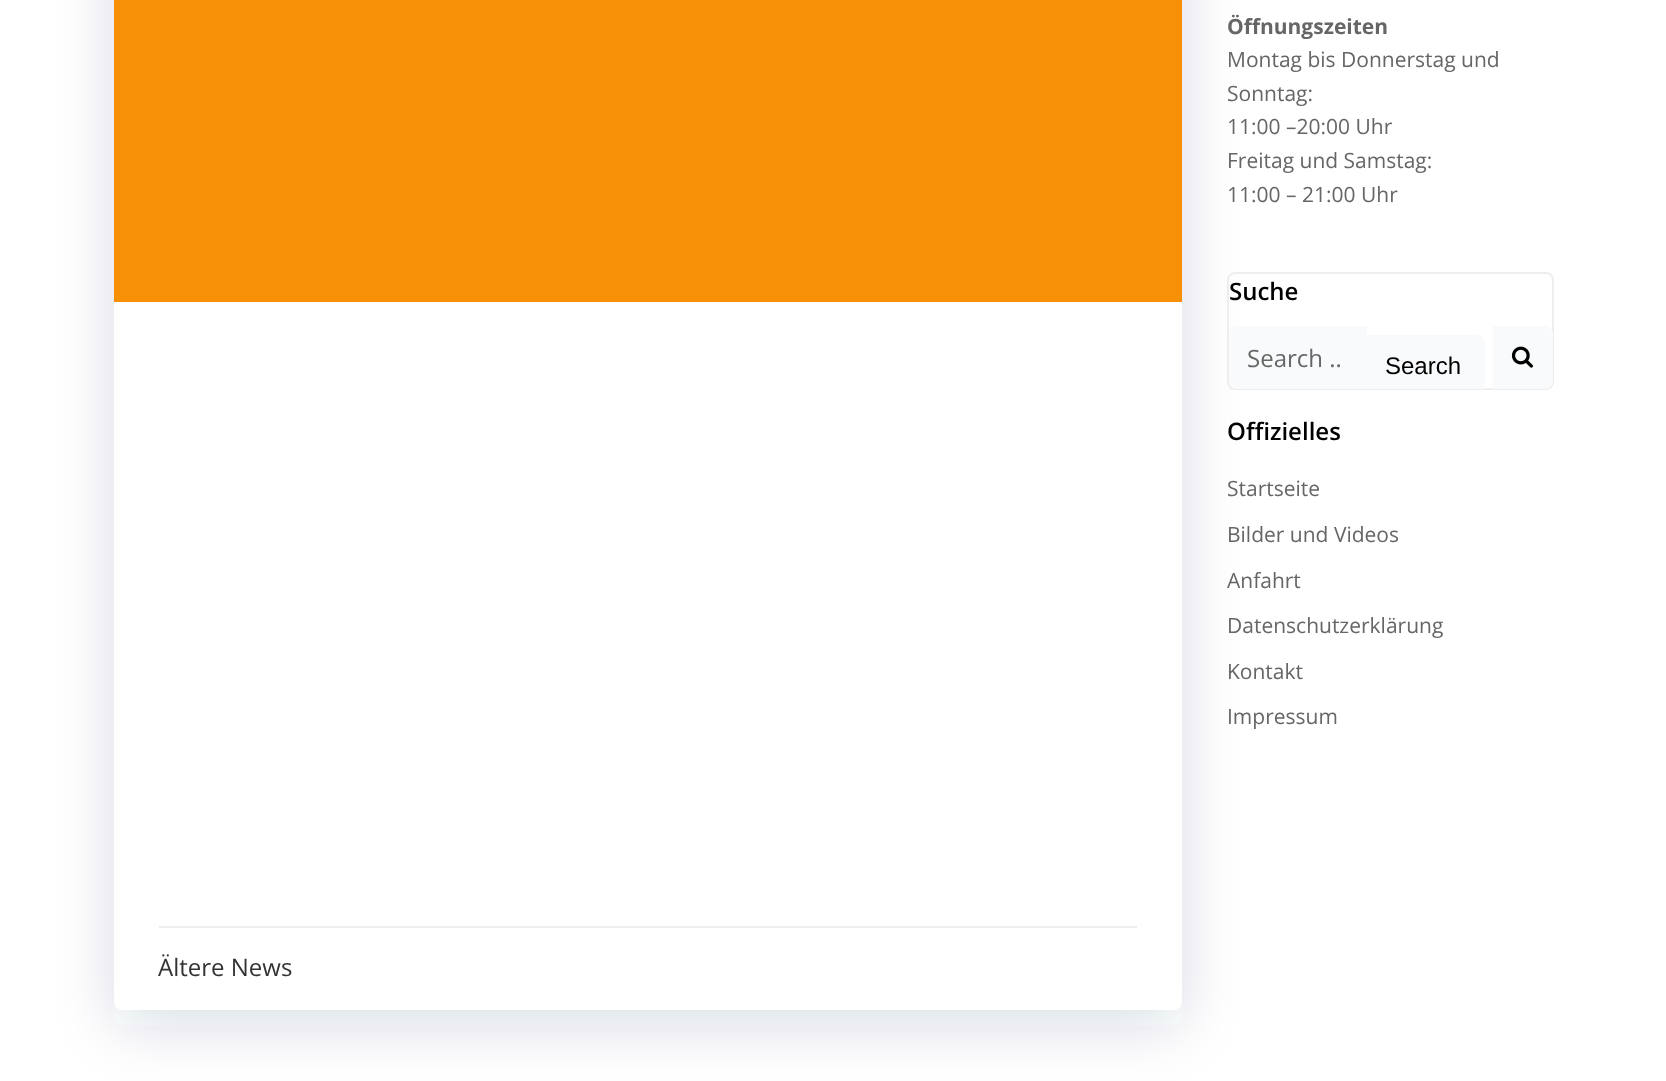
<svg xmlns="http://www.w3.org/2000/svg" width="1666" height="1081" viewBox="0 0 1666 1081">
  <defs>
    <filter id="blur1" x="-50%" y="-200%" width="200%" height="500%"><feGaussianBlur stdDeviation="30"/></filter>
    <clipPath id="clip1"><rect x="1247" y="341" width="96" height="33"/></clipPath>
  </defs>
  <rect width="100%" height="100%" fill="#ffffff"/>
  <rect x="114" y="-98" width="1068" height="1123" rx="8" fill="#01334a" fill-opacity="0.15" filter="url(#blur1)"/>
  <text x="1227" y="34" font-family="Open Sans" font-size="21" font-weight="bold" fill="#666666">Öffnungszeiten</text>
  <text x="1227" y="67" font-family="Open Sans" font-size="21" fill="#666666">Montag bis Donnerstag und</text>
  <text x="1227" y="101" font-family="Open Sans" font-size="21" fill="#666666">Sonntag:</text>
  <text x="1227" y="134" font-family="Open Sans" font-size="21" fill="#666666">11:00 –20:00 Uhr</text>
  <text x="1227" y="168" font-family="Open Sans" font-size="21" fill="#666666">Freitag und Samstag:</text>
  <text x="1227" y="202" font-family="Open Sans" font-size="21" fill="#666666">11:00 – 21:00 Uhr</text>
  <rect x="1228" y="273" width="325" height="116" rx="7" fill="none" stroke="#eeeeee" stroke-width="2"/>
  <text x="1229" y="300" font-family="Open Sans" font-size="24" font-weight="600" fill="#000000">Suche</text>
  <path d="M1237 326H1367V389H1237C1232.5 389 1229 385.5 1229 381V334C1229 329.5 1232.5 326 1237 326Z" fill="#f9fafb"/>
  <g clip-path="url(#clip1)">
    <text x="1247" y="367" font-family="Open Sans" font-size="24" fill="#666666">Search …</text>
  </g>
  <path d="M1367 335H1477C1481.5 335 1485 338.5 1485 343V389H1367Z" fill="#f9fafb"/>
  <text x="1385" y="374" font-family="Liberation Sans" font-size="24" fill="#000000">Search</text>
  <path d="M1493 326H1545C1549.5 326 1553 329.5 1553 334V381C1553 385.5 1549.5 389 1545 389H1493Z" fill="#f9fafb"/>
  <image x="1511" y="346" width="22" height="22" href="img1.png"/>
  <text x="1227" y="440" font-family="Open Sans" font-size="24" font-weight="600" fill="#000000">Offizielles</text>
  <text x="1227" y="496" font-family="Open Sans" font-size="21" fill="#666666">Startseite</text>
  <text x="1227" y="542" font-family="Open Sans" font-size="21" fill="#666666">Bilder und Videos</text>
  <text x="1227" y="588" font-family="Open Sans" font-size="21" fill="#666666">Anfahrt</text>
  <text x="1227" y="633" font-family="Open Sans" font-size="21" fill="#666666">Datenschutzerklärung</text>
  <text x="1227" y="679" font-family="Open Sans" font-size="21" fill="#666666">Kontakt</text>
  <text x="1227" y="724" font-family="Open Sans" font-size="21" fill="#666666">Impressum</text>
  <rect x="114" y="-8" width="1068" height="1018" rx="8" fill="#ffffff"/>
  <rect x="114" y="0" width="1068" height="302" fill="#f79007"/>
  <rect x="159" y="926" width="978" height="2" fill="#eeeeee"/>
  <text x="158" y="976" font-family="Open Sans" font-size="24" fill="#333333">Ältere News</text>
</svg>
